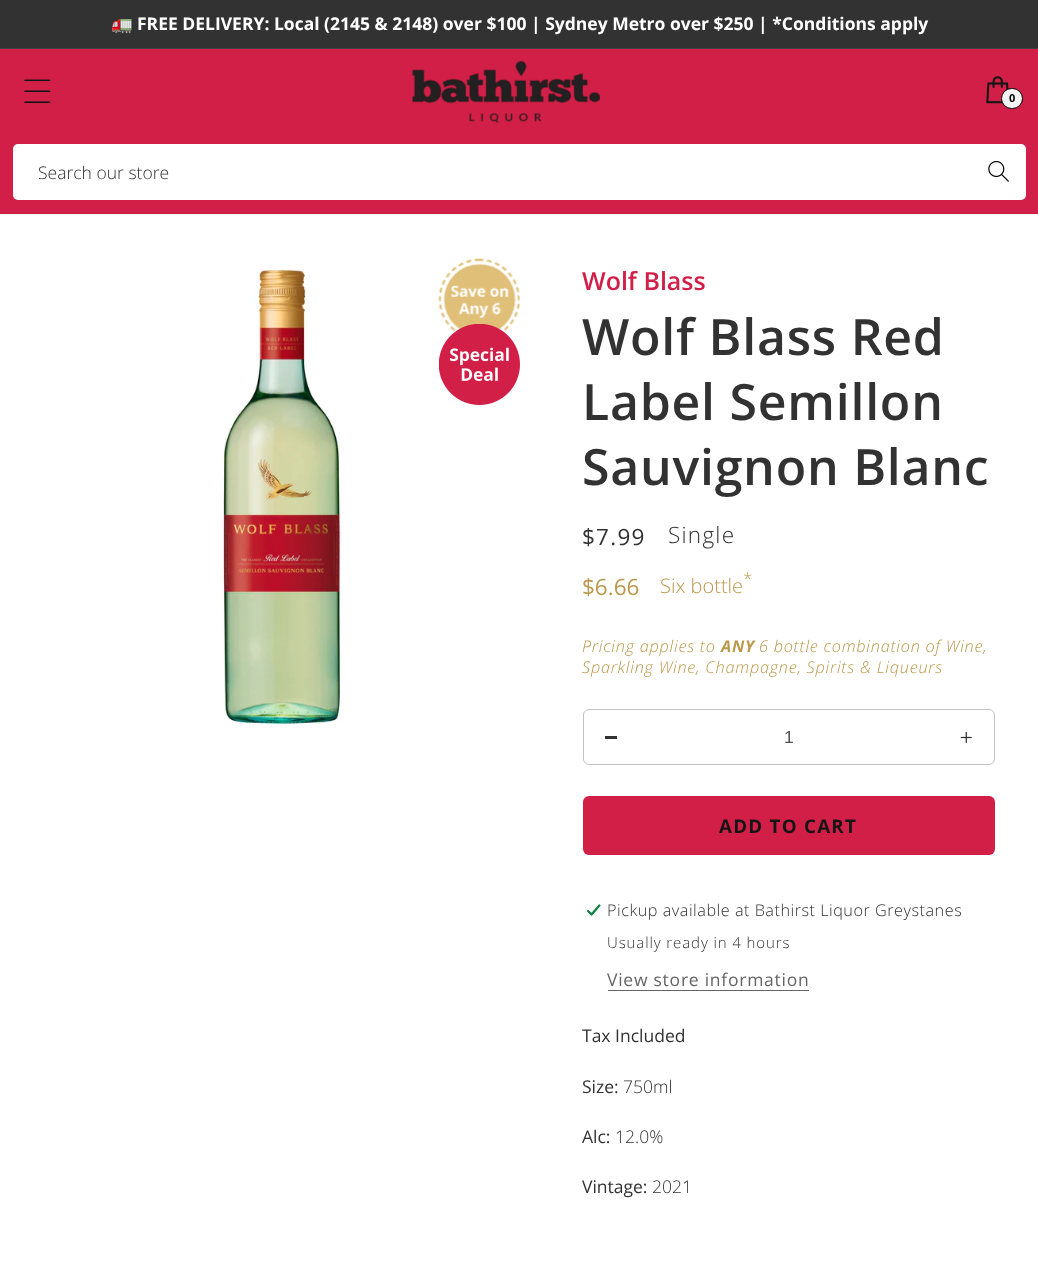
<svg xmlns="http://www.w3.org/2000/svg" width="1038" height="1288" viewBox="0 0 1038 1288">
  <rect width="100%" height="100%" fill="#ffffff"/>
  <rect x="0" y="0" width="1038" height="48" fill="#323232"/>
  <rect x="0" y="48" width="1038" height="1" fill="#424242"/>
  <text x="111" y="30" font-family="Noto Color Emoji" font-size="17.5" font-weight="bold" fill="#ffffff">🚛</text>
  <text x="137" y="30" font-family="Open Sans" font-size="17.5" font-weight="bold" fill="#ffffff">FREE DELIVERY: Local (2145 &amp; 2148) over $100 | Sydney Metro over $250 | *Conditions apply</text>
  <rect x="0" y="49" width="1038" height="164" fill="#d21f47"/>
  <rect x="0" y="213" width="1038" height="1" fill="#c31e43"/>
  <image x="24" y="79" width="27" height="24" href="img1.png"/>
  <image x="412" y="60" width="188" height="63" href="img2.png"/>
  <image x="986" y="76" width="23" height="28" href="img3.png"/>
  <rect x="1001.5" y="88.5" width="21" height="20" rx="10" fill="#f3f3f3" stroke="#000000"/>
  <text x="1009" y="102" font-family="Open Sans" font-size="11" font-weight="bold" fill="#000000">0</text>
  <rect x="13" y="144" width="1013" height="56" rx="5" fill="#ffffff"/>
  <text x="38" y="179" font-family="Open Sans" font-size="17.5" font-weight="300" fill="#323232">Search our store</text>
  <image x="988" y="161" width="21" height="21" href="img4.png"/>
  <image x="222" y="268" width="120" height="460" href="img5.png"/>
  <image x="438" y="258" width="82" height="74" href="img6.png"/>
  <image x="439" y="324" width="81" height="81" href="img7.png"/>
  <text x="582" y="290" font-family="Open Sans" font-size="25" font-weight="600" fill="#d21f47">Wolf Blass</text>
  <text x="582" y="355" font-family="Open Sans" font-size="50" font-weight="600" letter-spacing="0.75" fill="#323232">Wolf Blass Red</text>
  <text x="582" y="420" font-family="Open Sans" font-size="50" font-weight="600" letter-spacing="0.75" fill="#323232">Label Semillon</text>
  <text x="582" y="485" font-family="Open Sans" font-size="50" font-weight="600" letter-spacing="0.75" fill="#323232">Sauvignon Blanc</text>
  <text x="582" y="545" font-family="Open Sans" font-size="22.5" letter-spacing="1.25" fill="#323232">$7.99</text>
  <text x="668" y="543" font-family="Open Sans" font-size="22.5" font-weight="300" letter-spacing="1.25" fill="#323232">Single</text>
  <text x="743" y="585" font-family="Open Sans" font-size="17" font-weight="300" fill="#ba994c">*</text>
  <text x="582" y="595" font-family="Open Sans" font-size="22.5" fill="#ba994c">$6.66</text>
  <text x="660" y="593" font-family="Open Sans" font-size="20" font-weight="300" fill="#ba994c">Six bottle</text>
  <text x="582" y="652" font-family="Open Sans" font-size="16.25" font-weight="300" font-style="italic" letter-spacing="0.75" fill="#ba994c">Pricing applies to</text>
  <text x="721" y="652" font-family="Open Sans" font-size="16.25" font-weight="bold" font-style="italic" letter-spacing="0.75" fill="#ba994c">ANY</text>
  <text x="759" y="652" font-family="Open Sans" font-size="16.25" font-weight="300" font-style="italic" letter-spacing="0.75" fill="#ba994c">6 bottle combination of Wine,</text>
  <text x="582" y="673" font-family="Open Sans" font-size="16.25" font-weight="300" font-style="italic" letter-spacing="0.75" fill="#ba994c">Sparkling Wine, Champagne, Spirits &amp; Liqueurs</text>
  <rect x="583.5" y="709.5" width="411" height="55" rx="5.5" fill="none" stroke="#c2c2c2"/>
  <rect x="605" y="736" width="12" height="3" fill="#323232"/>
  <text x="784" y="743" font-family="Liberation Sans" font-size="17.5" fill="#515151">1</text>
  <image x="960" y="731" width="12" height="13" href="img8.png"/>
  <rect x="583" y="796" width="412" height="59" rx="6" fill="#d21f47"/>
  <text x="719" y="833" font-family="Open Sans" font-size="18.75" font-weight="bold" letter-spacing="1.25" fill="#151515">ADD TO CART</text>
  <image x="586" y="903" width="15" height="14" href="img9.png"/>
  <text x="607" y="916" font-family="Open Sans" font-size="16.25" font-weight="300" letter-spacing="0.5" fill="#323232">Pickup available at Bathirst Liquor Greystanes</text>
  <text x="607" y="948" font-family="Open Sans" font-size="15" font-weight="300" letter-spacing="0.9" fill="#323232">Usually ready in 4 hours</text>
  <text x="607" y="986" font-family="Open Sans" font-size="17.5" letter-spacing="0.75" fill="#656565">View store information</text>
  <rect x="608" y="990" width="201" height="1" fill="#656565"/>
  <text x="582" y="1042" font-family="Open Sans" font-size="17.5" fill="#323232">Tax Included</text>
  <text x="582" y="1093" font-family="Open Sans" font-size="17.5" fill="#323232">Size:</text>
  <text x="623" y="1093" font-family="Open Sans" font-size="17.5" font-weight="300" fill="#323232">750ml</text>
  <text x="582" y="1143" font-family="Open Sans" font-size="17.5" fill="#323232">Alc:</text>
  <text x="615" y="1143" font-family="Open Sans" font-size="17.5" font-weight="300" fill="#323232">12.0%</text>
  <text x="582" y="1193" font-family="Open Sans" font-size="17.5" fill="#323232">Vintage:</text>
  <text x="652" y="1193" font-family="Open Sans" font-size="17.5" font-weight="300" fill="#323232">2021</text>
</svg>
